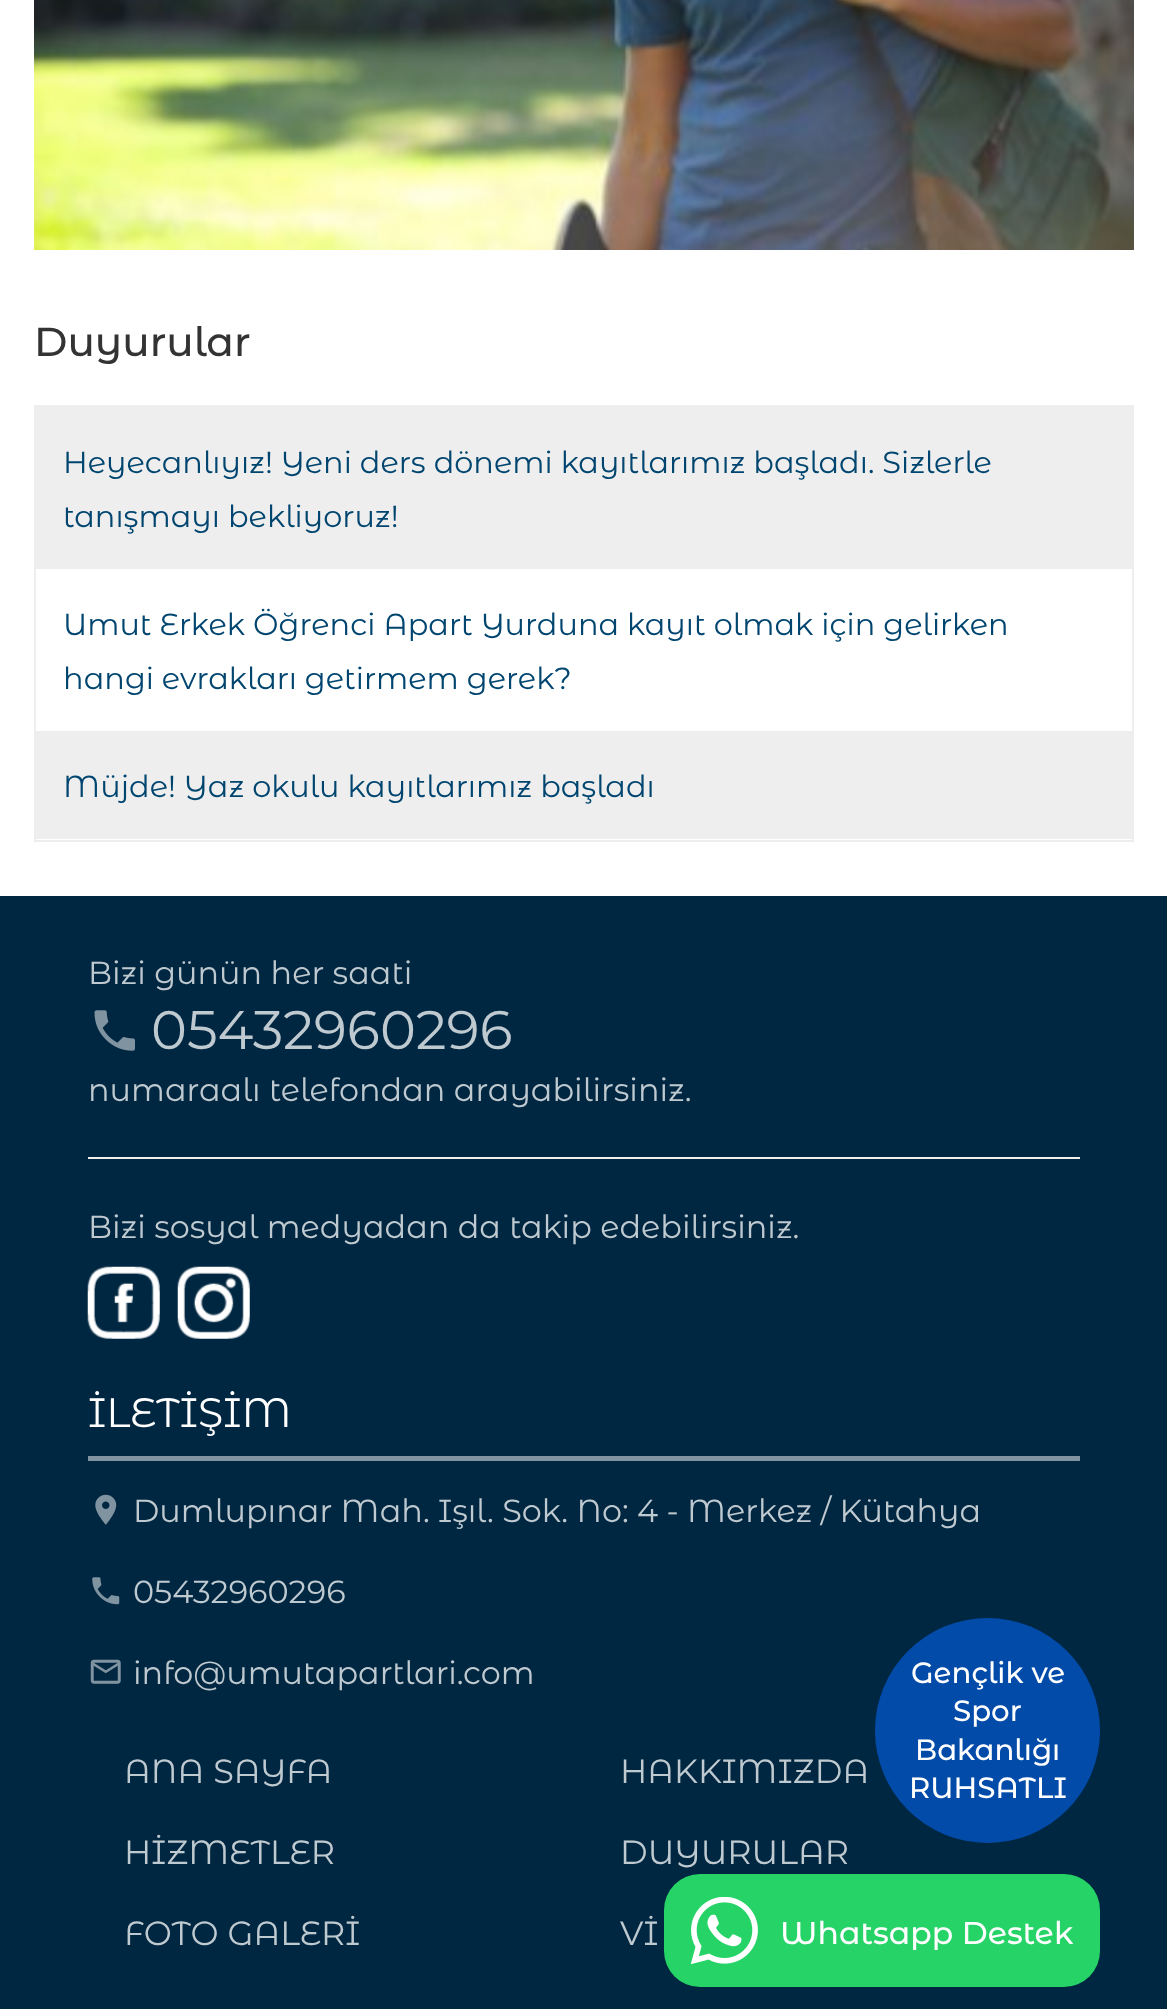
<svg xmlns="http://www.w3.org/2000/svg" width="1167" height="2009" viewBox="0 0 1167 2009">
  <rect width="100%" height="100%" fill="#ffffff"/>
  <image x="34" y="0" width="1100" height="250" href="img1.png"/>
  <text x="34" y="356" font-family="Montserrat Alternates" font-size="40.5" font-weight="500" fill="#333333">Duyurular</text>
  <rect x="35" y="406" width="1098" height="435" fill="none" stroke="#eeeeee" stroke-width="2"/>
  <rect x="36" y="407" width="1096" height="162" fill="#eeeeee"/>
  <text x="63" y="473" font-family="Montserrat Alternates" font-size="30.4" fill="#00456f">Heyecanlıyız! Yeni ders dönemi kayıtlarımız başladı. Sizlerle</text>
  <text x="63" y="527" font-family="Montserrat Alternates" font-size="30.4" fill="#00456f">tanışmayı bekliyoruz!</text>
  <text x="63" y="635" font-family="Montserrat Alternates" font-size="30.4" fill="#00456f">Umut Erkek Öğrenci Apart Yurduna kayıt olmak için gelirken</text>
  <text x="63" y="689" font-family="Montserrat Alternates" font-size="30.4" fill="#00456f">hangi evrakları getirmem gerek?</text>
  <rect x="36" y="731" width="1096" height="108" fill="#eeeeee"/>
  <text x="63" y="797" font-family="Montserrat Alternates" font-size="30.4" fill="#00456f">Müjde! Yaz okulu kayıtlarımız başladı</text>
  <rect x="0" y="896" width="1167" height="1113" fill="#002741"/>
  <text x="88" y="984" font-family="Montserrat Alternates" font-size="31.9" fill="#bfc9d0">Bizi günün her saati</text>
  <image x="94" y="1010" width="41" height="41" href="img2.png"/>
  <text x="151" y="1049" font-family="Montserrat Alternates" font-size="54.25" fill="#bfc9d0">05432960296</text>
  <text x="88" y="1101" font-family="Montserrat Alternates" font-size="31.9" fill="#bfc9d0">numaraalı telefondan arayabilirsiniz.</text>
  <rect x="88" y="1157" width="992" height="2" fill="#eeeeee"/>
  <text x="88" y="1238" font-family="Montserrat Alternates" font-size="31.9" fill="#bfc9d0">Bizi sosyal medyadan da takip edebilirsiniz.</text>
  <image x="87" y="1266" width="73" height="73" href="img3.png"/>
  <image x="177" y="1266" width="73" height="73" href="img4.png"/>
  <text x="88" y="1427" font-family="Montserrat Alternates" font-size="41" fill="#ffffff">İLETİŞİM</text>
  <rect x="88" y="1456" width="992" height="5" fill="#8093a0"/>
  <image x="95" y="1494" width="22" height="31" href="img5.png"/>
  <text x="133" y="1522" font-family="Montserrat Alternates" font-size="31.9" fill="#bfc9d0">Dumlupınar Mah. Işıl. Sok. No: 4 - Merkez / Kütahya</text>
  <image x="92" y="1577" width="28" height="28" href="img6.png"/>
  <text x="133" y="1603" font-family="Montserrat Alternates" font-size="31.9" fill="#bfc9d0">05432960296</text>
  <image x="90" y="1659" width="31" height="25" href="img7.png"/>
  <text x="133" y="1684" font-family="Montserrat Alternates" font-size="31.9" fill="#bfc9d0">info@umutapartlari.com</text>
  <text x="124" y="1783" font-family="Montserrat Alternates" font-size="33.5" fill="#bfc9d0">ANA SAYFA</text>
  <text x="620" y="1783" font-family="Montserrat Alternates" font-size="33.5" fill="#bfc9d0">HAKKIMIZDA</text>
  <text x="124" y="1864" font-family="Montserrat Alternates" font-size="33.5" fill="#bfc9d0">HİZMETLER</text>
  <text x="620" y="1864" font-family="Montserrat Alternates" font-size="33.5" fill="#bfc9d0">DUYURULAR</text>
  <text x="124" y="1945" font-family="Montserrat Alternates" font-size="33.5" fill="#bfc9d0">FOTO GALERİ</text>
  <text x="620" y="1945" font-family="Montserrat Alternates" font-size="33.5" fill="#bfc9d0">Vİ</text>
  <circle cx="987.5" cy="1730.5" r="112.5" fill="#024ba9"/>
  <text x="911" y="1683" font-family="Montserrat Alternates" font-size="29.25" font-weight="500" fill="#ffffff">Gençlik ve</text>
  <text x="953" y="1721" font-family="Montserrat Alternates" font-size="29.25" font-weight="500" fill="#ffffff">Spor</text>
  <text x="915" y="1760" font-family="Montserrat Alternates" font-size="29.25" font-weight="500" fill="#ffffff">Bakanlığı</text>
  <text x="909" y="1798" font-family="Montserrat Alternates" font-size="29.25" font-weight="500" fill="#ffffff">RUHSATLI</text>
  <rect x="664" y="1874" width="436" height="113" rx="36" fill="#25d366"/>
  <image x="691" y="1897" width="67" height="67" href="img8.png"/>
  <text x="780" y="1944" font-family="Montserrat Alternates" font-size="31.5" font-weight="500" fill="#ffffff">Whatsapp Destek</text>
</svg>
